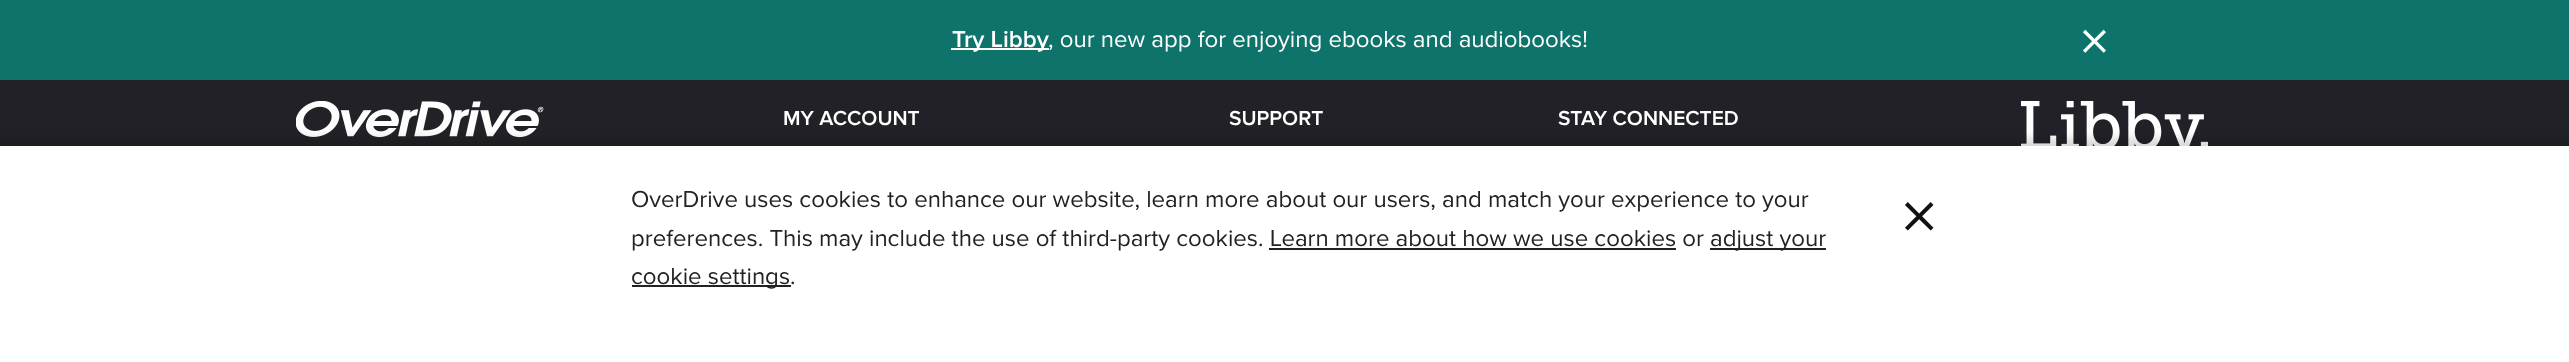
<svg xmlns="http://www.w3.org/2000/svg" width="2569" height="362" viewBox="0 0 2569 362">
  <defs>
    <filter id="blur1" x="-50%" y="-200%" width="200%" height="500%"><feGaussianBlur stdDeviation="4"/></filter>
  </defs>
  <rect width="100%" height="100%" fill="#212127"/>
  <rect x="0" y="0" width="2569" height="80" fill="#0d736b"/>
  <rect x="951" y="48" width="98" height="2" fill="#ffffff"/>
  <text x="952" y="47" font-family="Proxima Nova" font-size="24" font-weight="600" fill="#ffffff">Try Libby</text>
  <text x="1048" y="47" font-family="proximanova" font-size="24" fill="#ffffff">, our new app for enjoying ebooks and audiobooks!</text>
  <text x="2079" y="62" font-family="proximanova" font-size="62" fill="#ffffff">×</text>
  <image x="296" y="101" width="248" height="37" href="img1.png"/>
  <text x="783" y="125" font-family="Proxima Nova" font-size="21" font-weight="600" fill="#ffffff">MY ACCOUNT</text>
  <text x="1229" y="125" font-family="Proxima Nova" font-size="21" font-weight="600" fill="#ffffff">SUPPORT</text>
  <text x="1558" y="125" font-family="Proxima Nova" font-size="21" font-weight="600" fill="#ffffff">STAY CONNECTED</text>
  <image x="2021" y="101" width="187" height="45" href="img2.png"/>
  <rect x="-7" y="138" width="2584" height="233" fill="#000000" fill-opacity="0.15" filter="url(#blur1)"/>
  <rect x="0" y="146" width="2569" height="216" fill="#ffffff"/>
  <text x="631" y="207" font-family="proximanova" font-size="24" fill="#222222">OverDrive uses cookies to enhance our website, learn more about our users, and match your experience to your</text>
  <text x="631" y="246" font-family="proximanova" font-size="24" fill="#222222">preferences. This may include the use of third-party cookies. Learn more about how we use cookies or</text>
  <rect x="1269" y="248" width="407" height="2" fill="#222222"/>
  <rect x="1710" y="248" width="116" height="2" fill="#222222"/>
  <text x="1710" y="246" font-family="proximanova" font-size="24" fill="#222222">adjust your</text>
  <rect x="632" y="285" width="159" height="2" fill="#222222"/>
  <text x="631" y="284" font-family="proximanova" font-size="24" fill="#222222">cookie settings.</text>
  <text x="1900" y="242" font-family="proximanova" font-size="77" fill="#111111">×</text>
</svg>
